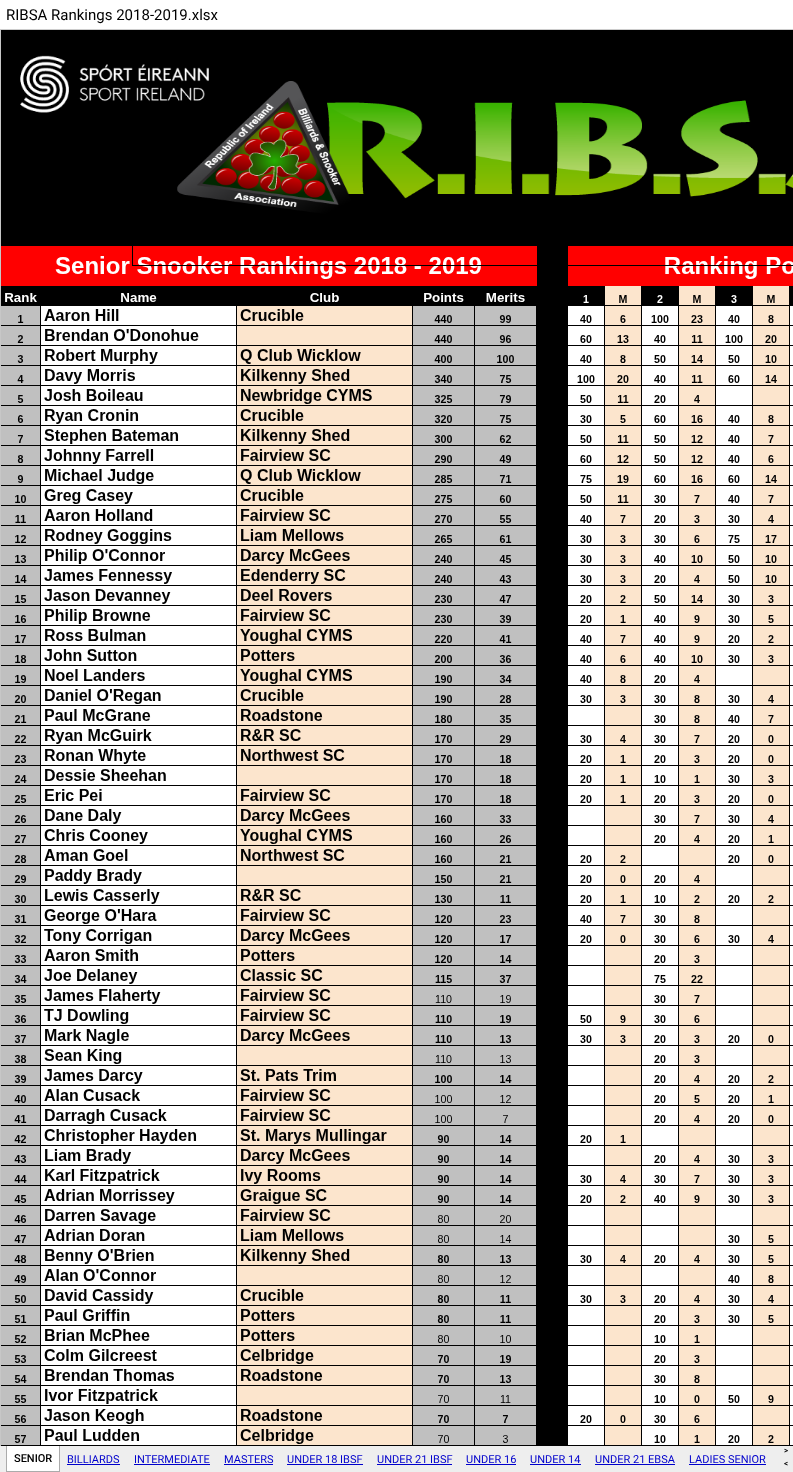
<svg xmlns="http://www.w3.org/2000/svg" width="793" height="1472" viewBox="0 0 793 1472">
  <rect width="100%" height="100%" fill="#ffffff"/>
  <rect x="0" y="29" width="793" height="1" fill="#cccccc"/>
  <text x="6" y="20" font-family="Roboto" font-size="15" fill="#000000">RIBSA Rankings 2018-2019.xlsx</text>
  <image x="0" y="30" width="793" height="1416" href="img1.png"/>
  <rect x="0" y="1446" width="793" height="26" fill="#eeeeee"/>
  <rect x="7" y="1446" width="52" height="25" fill="#ffffff"/>
  <rect x="59" y="1446" width="1" height="26" fill="#ababab"/>
  <rect x="6" y="1471" width="54" height="1" fill="#ababab"/>
  <rect x="6" y="1446" width="1" height="26" fill="#ababab"/>
  <text x="14" y="1462" font-family="Roboto" font-size="11" font-weight="500" fill="#000000">SENIOR</text>
  <text x="67" y="1463" font-family="Roboto" font-size="11" fill="#0000cc">BILLIARDS</text>
  <rect x="67" y="1464" width="53" height="1" fill="#0000cc"/>
  <text x="134" y="1463" font-family="Roboto" font-size="11" fill="#0000cc">INTERMEDIATE</text>
  <rect x="134" y="1464" width="76" height="1" fill="#0000cc"/>
  <text x="224" y="1463" font-family="Roboto" font-size="11" fill="#0000cc">MASTERS</text>
  <rect x="224" y="1464" width="49" height="1" fill="#0000cc"/>
  <text x="287" y="1463" font-family="Roboto" font-size="11" fill="#0000cc">UNDER 18 IBSF</text>
  <rect x="287" y="1464" width="76" height="1" fill="#0000cc"/>
  <text x="377" y="1463" font-family="Roboto" font-size="11" fill="#0000cc">UNDER 21 IBSF</text>
  <rect x="377" y="1464" width="75" height="1" fill="#0000cc"/>
  <text x="466" y="1463" font-family="Roboto" font-size="11" fill="#0000cc">UNDER 16</text>
  <rect x="466" y="1464" width="50" height="1" fill="#0000cc"/>
  <text x="530" y="1463" font-family="Roboto" font-size="11" fill="#0000cc">UNDER 14</text>
  <rect x="530" y="1464" width="51" height="1" fill="#0000cc"/>
  <text x="595" y="1463" font-family="Roboto" font-size="11" fill="#0000cc">UNDER 21 EBSA</text>
  <rect x="595" y="1464" width="80" height="1" fill="#0000cc"/>
  <text x="689" y="1463" font-family="Roboto" font-size="11" fill="#0000cc">LADIES SENIOR</text>
  <rect x="689" y="1464" width="77" height="1" fill="#0000cc"/>
  <text x="784" y="1453" font-family="Roboto" font-size="8" font-weight="bold" fill="#000000">&gt;</text>
  <text x="784" y="1466" font-family="Roboto" font-size="8" font-weight="bold" fill="#000000">&lt;</text>
</svg>
